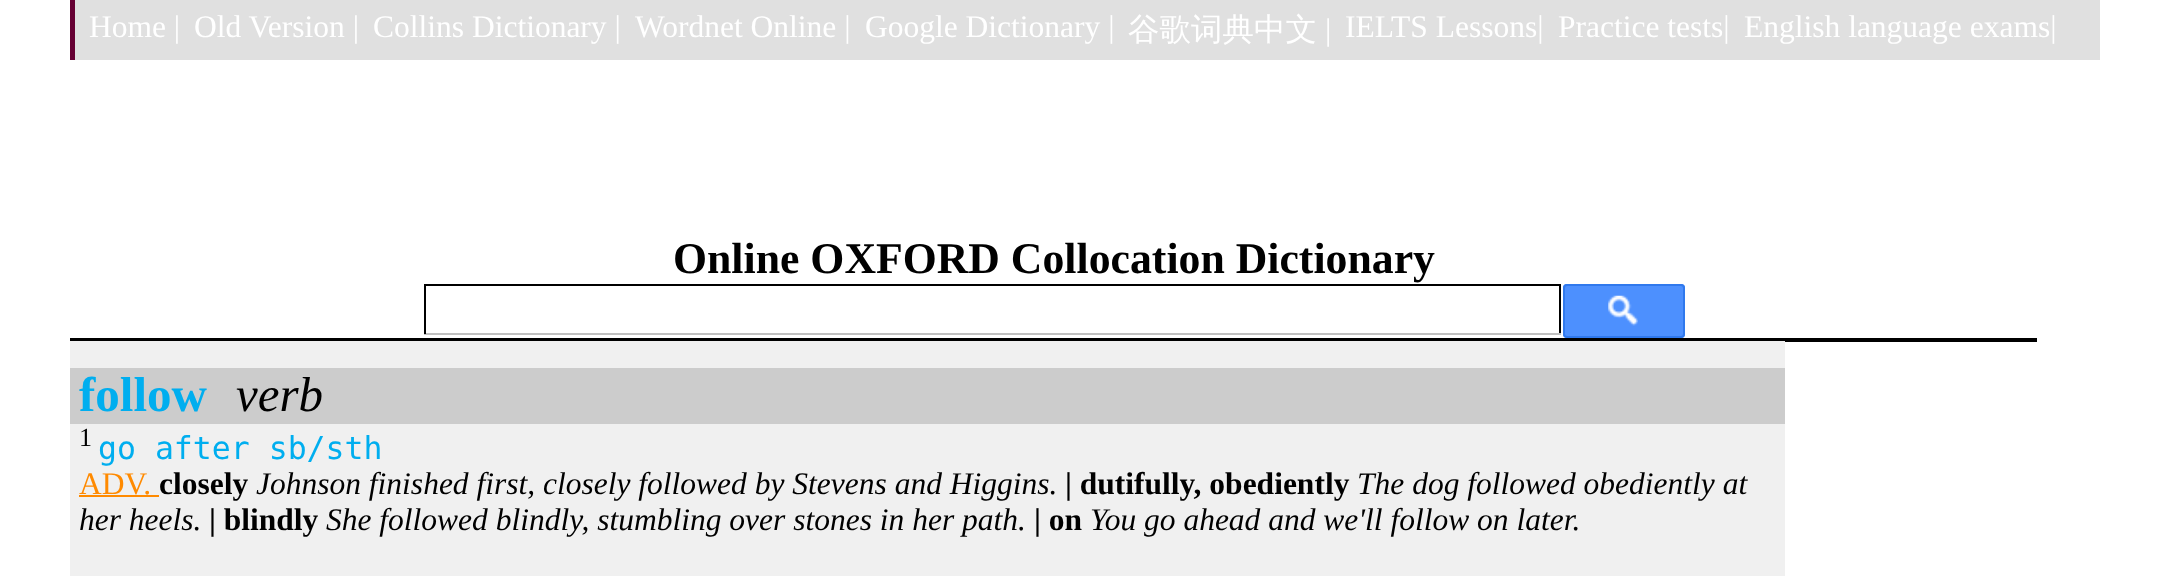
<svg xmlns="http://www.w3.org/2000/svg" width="2169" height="576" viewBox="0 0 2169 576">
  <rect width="100%" height="100%" fill="#ffffff"/>
  <rect x="75" y="0" width="2025" height="60" fill="#e0e0e0"/>
  <rect x="70" y="0" width="5" height="60" fill="#660033"/>
  <text x="89" y="37" font-family="Liberation Serif" font-size="31.5" fill="#ffffff">Home |</text>
  <text x="194" y="37" font-family="Liberation Serif" font-size="31.5" fill="#ffffff">Old Version |</text>
  <text x="373" y="37" font-family="Liberation Serif" font-size="31.5" fill="#ffffff">Collins Dictionary |</text>
  <text x="635" y="37" font-family="Liberation Serif" font-size="31.5" fill="#ffffff">Wordnet Online |</text>
  <text x="865" y="37" font-family="Liberation Serif" font-size="31.5" fill="#ffffff">Google Dictionary |</text>
  <text x="1128" y="40" font-family="WenQuanYi Zen Hei" font-size="31.5" font-weight="500" fill="#ffffff">谷歌词典中文</text>
  <text x="1325" y="40" font-family="Liberation Serif" font-size="31.5" fill="#ffffff">|</text>
  <text x="1345" y="37" font-family="Liberation Serif" font-size="31.5" fill="#ffffff">IELTS Lessons|</text>
  <text x="1558" y="37" font-family="Liberation Serif" font-size="31.5" fill="#ffffff">Practice tests|</text>
  <text x="1744" y="37" font-family="Liberation Serif" font-size="31.5" fill="#ffffff">English language exams|</text>
  <rect x="70" y="338" width="1967" height="4" fill="#000000"/>
  <text x="673" y="273" font-family="Liberation Serif" font-size="43.75" font-weight="bold" fill="#000000">Online OXFORD Collocation Dictionary</text>
  <rect x="424" y="284" width="1137" height="2" fill="#000000"/>
  <rect x="1559" y="284" width="2" height="50" fill="#000000"/>
  <rect x="424" y="333" width="1137" height="2" fill="#c0c0c0"/>
  <rect x="424" y="284" width="2" height="50" fill="#000000"/>
  <rect x="1563" y="284" width="122" height="54" rx="4" fill="#4d90fe"/>
  <image x="1608" y="295" width="30" height="31" href="img1.png"/>
  <rect x="1564" y="285" width="120" height="52" rx="3" fill="none" stroke="#3079ed" stroke-width="2"/>
  <rect x="70" y="341" width="1715" height="235" fill="#f0f0f0"/>
  <rect x="70" y="368" width="1715" height="56" fill="#cccccc"/>
  <text x="79" y="411" font-family="Liberation Serif" font-size="49" font-weight="bold" fill="#00aeef">follow</text>
  <text x="236" y="411" font-family="Liberation Serif" font-size="49" font-style="italic" fill="#000000">verb</text>
  <text x="79" y="446" font-family="Liberation Serif" font-size="26" fill="#000000">1</text>
  <text x="98" y="459" font-family="DejaVu Sans Mono" font-size="31.5" fill="#00aeef">go after sb/sth</text>
  <text x="79" y="494" font-family="Liberation Serif" font-size="31.5" fill="#ff8a00">ADV.</text>
  <rect x="79" y="495" width="80" height="2" fill="#ff8a00"/>
  <text x="159" y="494" font-family="Liberation Serif" font-size="31.5" font-weight="bold" fill="#000000">closely</text>
  <text x="256" y="494" font-family="Liberation Serif" font-size="31.5" font-style="italic" fill="#000000">Johnson finished first, closely followed by Stevens and Higgins.</text>
  <text x="1065" y="494" font-family="Liberation Serif" font-size="31.5" font-weight="bold" fill="#000000">| dutifully, obediently</text>
  <text x="1357" y="494" font-family="Liberation Serif" font-size="31.5" font-style="italic" fill="#000000">The dog followed obediently at</text>
  <text x="79" y="530" font-family="Liberation Serif" font-size="31.5" font-style="italic" fill="#000000">her heels.</text>
  <text x="209" y="530" font-family="Liberation Serif" font-size="31.5" font-weight="bold" fill="#000000">| blindly</text>
  <text x="326" y="530" font-family="Liberation Serif" font-size="31.5" font-style="italic" fill="#000000">She followed blindly, stumbling over stones in her path.</text>
  <text x="1034" y="530" font-family="Liberation Serif" font-size="31.5" font-weight="bold" fill="#000000">| on</text>
  <text x="1090" y="530" font-family="Liberation Serif" font-size="31.5" font-style="italic" fill="#000000">You go ahead and we'll follow on later.</text>
</svg>
